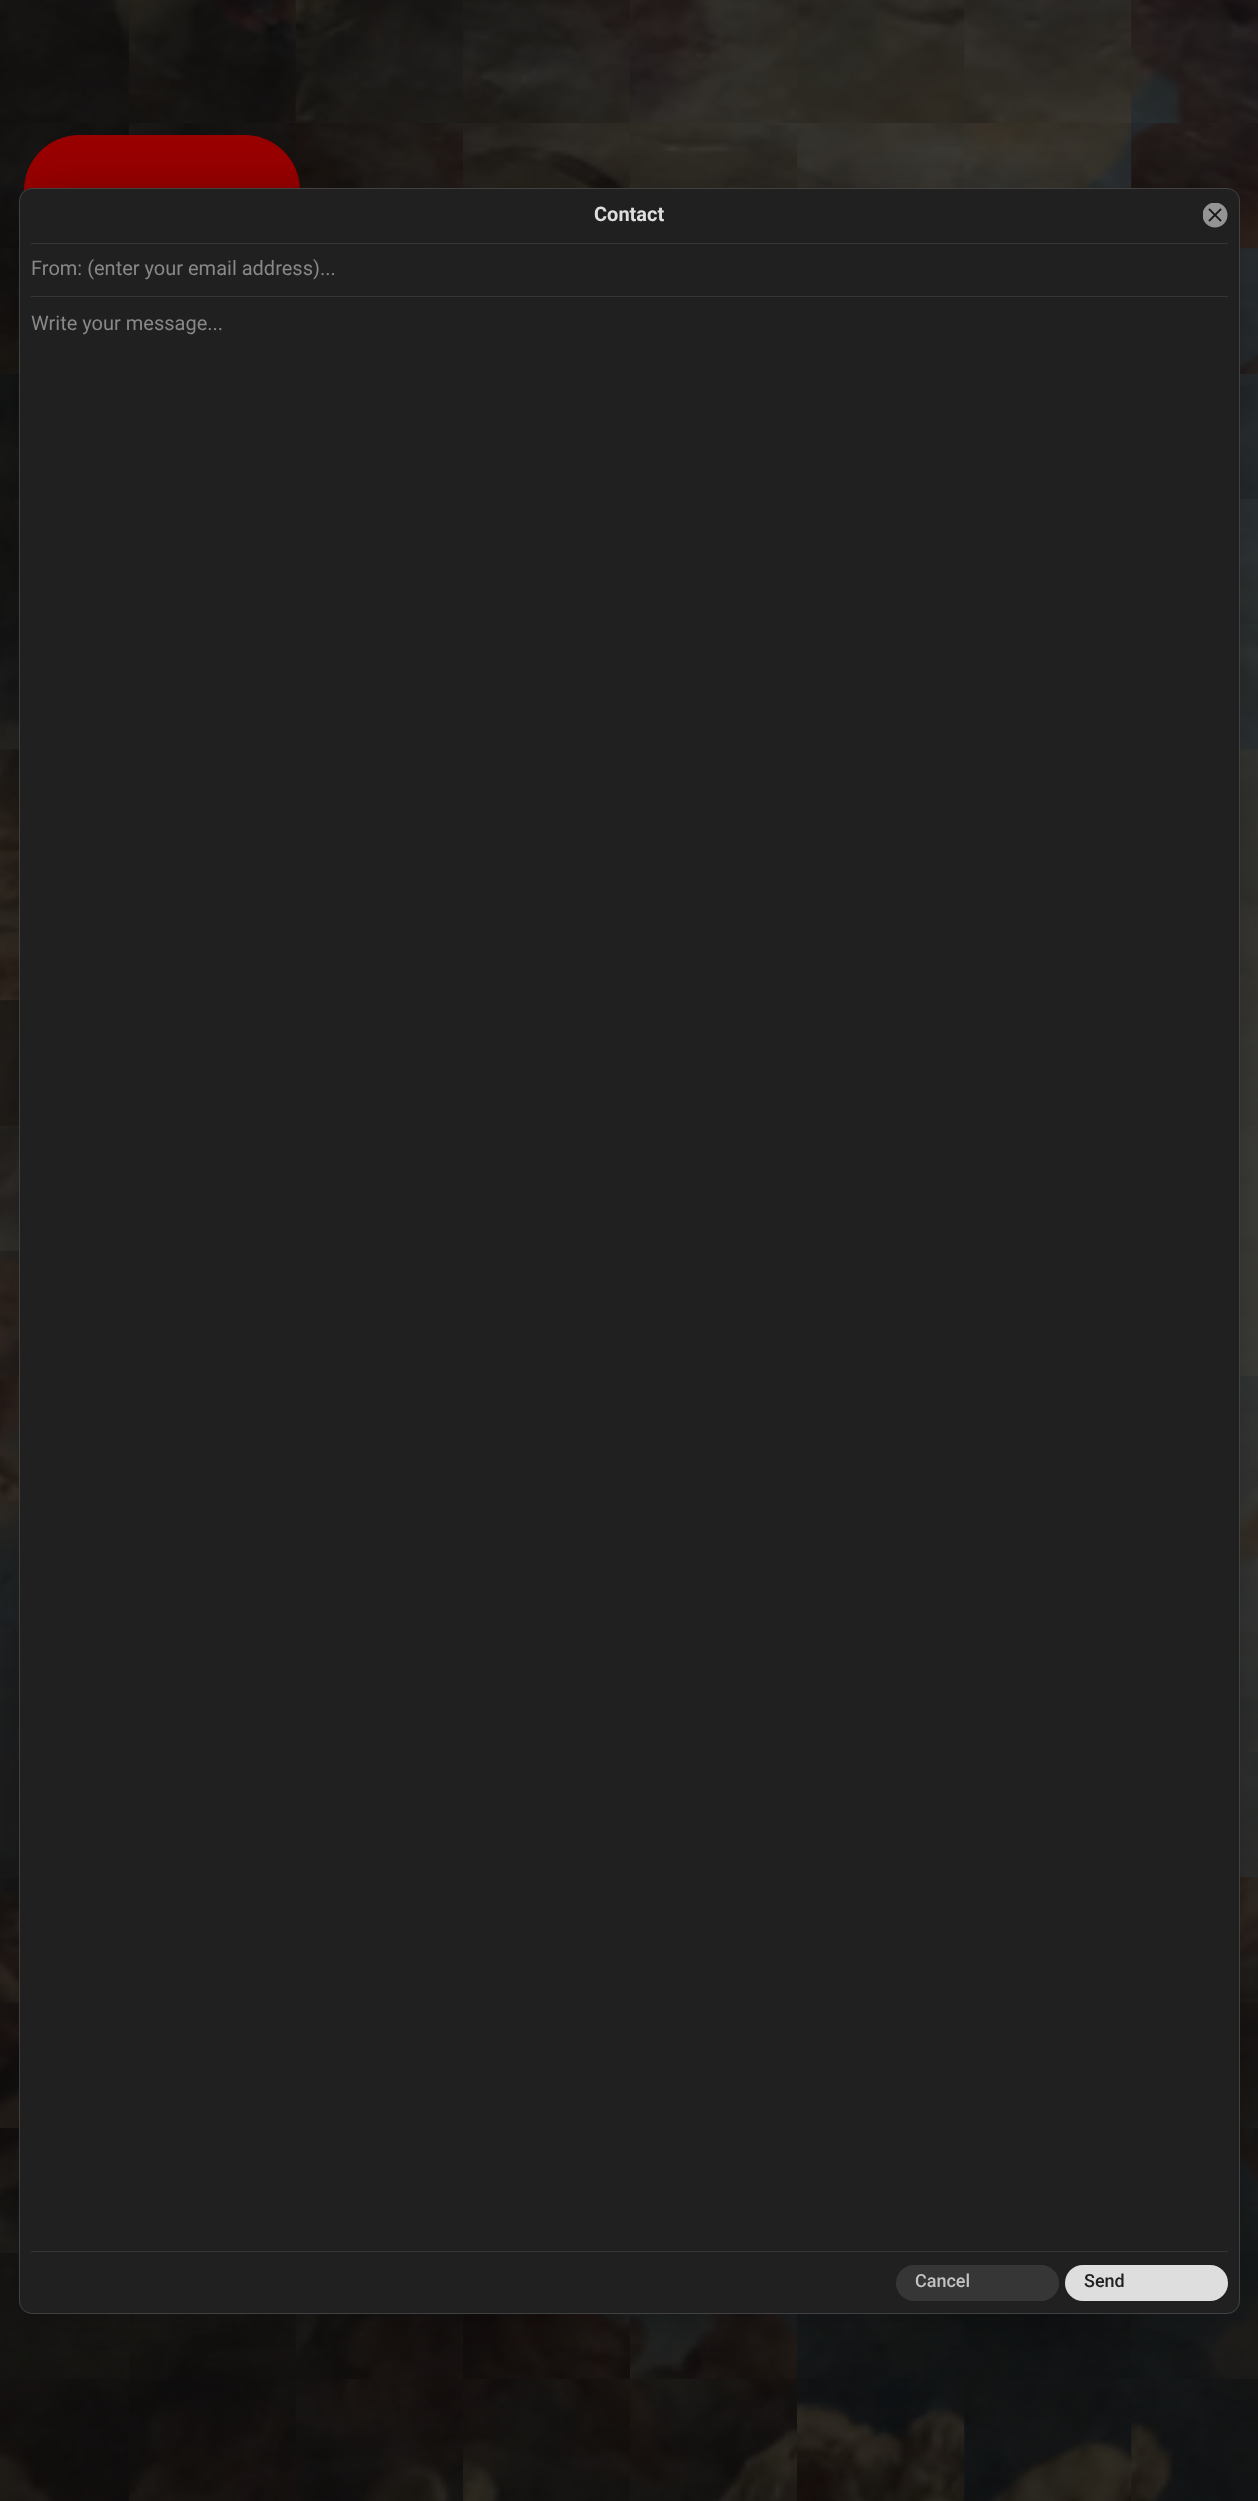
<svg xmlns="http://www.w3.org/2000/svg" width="1258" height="2501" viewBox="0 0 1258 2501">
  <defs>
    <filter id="blur1" x="-50%" y="-200%" width="200%" height="500%"><feGaussianBlur stdDeviation="25"/></filter>
  </defs>
  <rect width="100%" height="100%" fill="#ffffff"/>
  <image x="0" y="0" width="1258" height="2501" href="img1.png"/>
  <rect x="24" y="135" width="276" height="111" rx="55.5" fill="#990000"/>
  <rect x="24" y="193" width="1221" height="2126" rx="14" fill="#000000" fill-opacity="0.25" filter="url(#blur1)"/>
  <rect x="19" y="188" width="1221" height="2126" rx="13" fill="#202020"/>
  <image x="1203" y="203" width="25" height="25" href="img2.png"/>
  <rect x="31" y="243" width="1197" height="1" fill="#363636"/>
  <rect x="31" y="296" width="1197" height="1" fill="#363636"/>
  <rect x="31" y="2251" width="1197" height="1" fill="#363636"/>
  <rect x="896" y="2265" width="163" height="36" rx="18" fill="#363636"/>
  <rect x="1065" y="2265" width="163" height="36" rx="18" fill="#dedede"/>
  <rect x="19.5" y="188.5" width="1220" height="2125" rx="12.5" fill="none" stroke="#414141"/>
  <text x="594" y="221" font-family="Roboto" font-size="20" font-weight="bold" fill="#dedede">Contact</text>
  <text x="31" y="275" font-family="Roboto" font-size="20" fill="#888888">From: (enter your email address)...</text>
  <text x="31" y="330" font-family="Roboto" font-size="20" fill="#888888">Write your message...</text>
  <text x="915" y="2287" font-family="Roboto" font-size="18" font-weight="500" fill="#c3c3c3">Cancel</text>
  <text x="1084" y="2287" font-family="Roboto" font-size="18" font-weight="500" fill="#212121">Send</text>
</svg>
